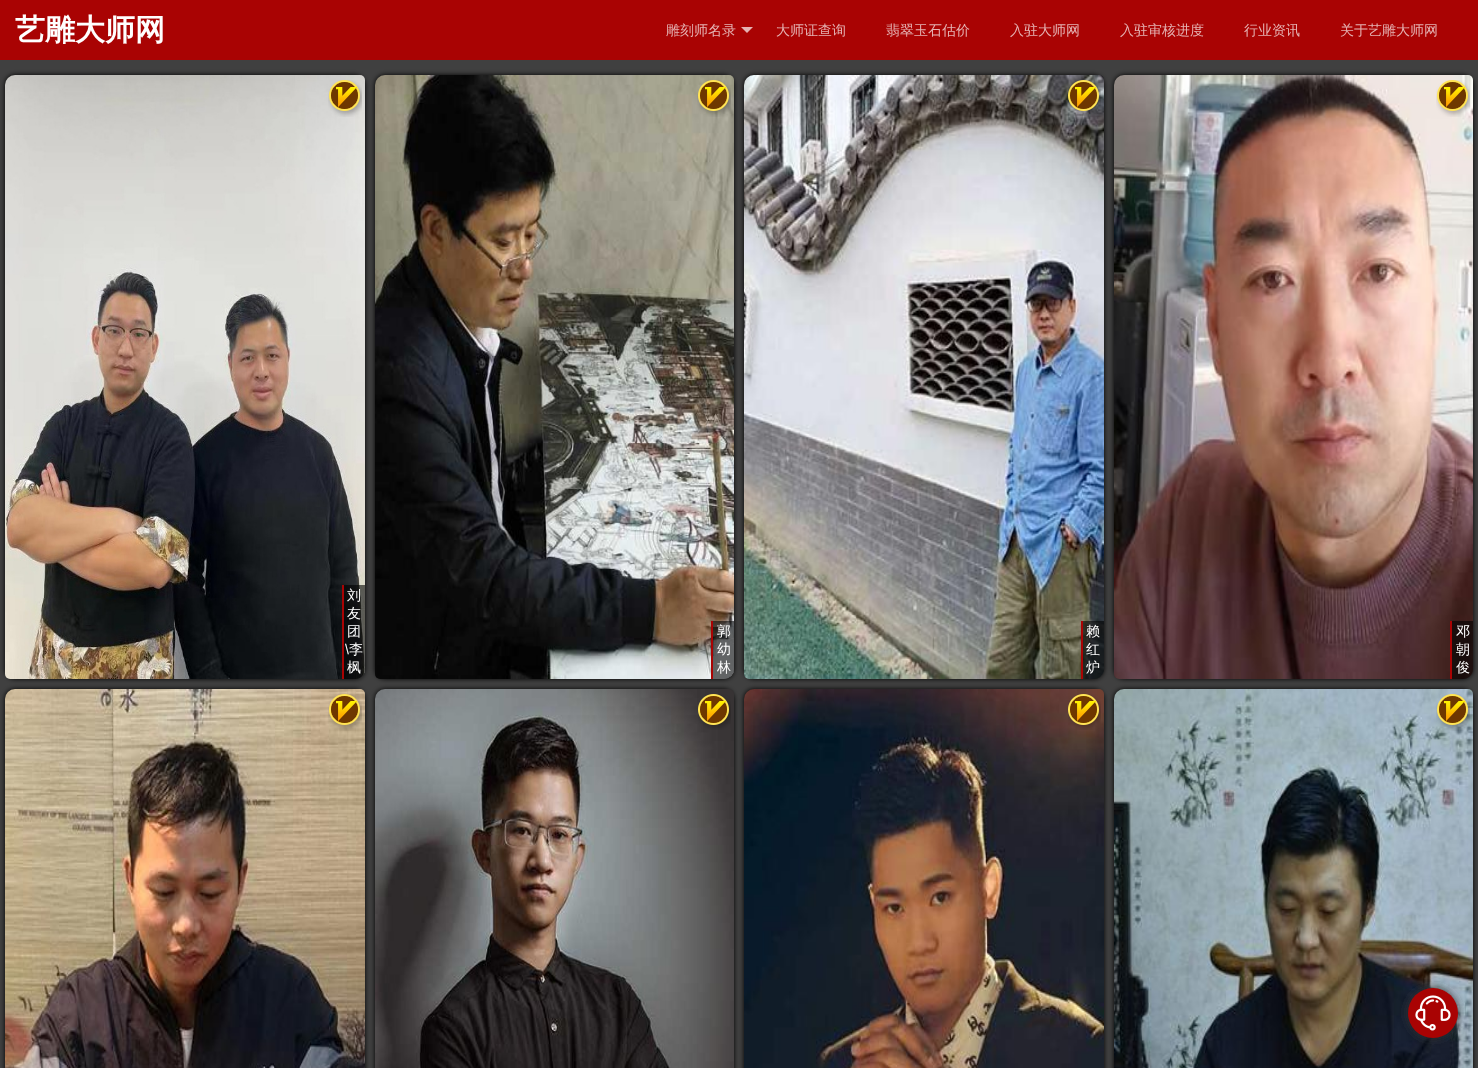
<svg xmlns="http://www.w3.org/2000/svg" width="1478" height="1068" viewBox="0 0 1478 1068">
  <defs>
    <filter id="blur1" x="-50%" y="-200%" width="200%" height="500%"><feGaussianBlur stdDeviation="2.5"/></filter>
    <filter id="blur2" x="-50%" y="-200%" width="200%" height="500%"><feGaussianBlur stdDeviation="5"/></filter>
  </defs>
  <rect width="100%" height="100%" fill="#404040"/>
  <rect x="0" y="0" width="1478" height="60" fill="#a90303"/>
  <text x="15" y="40" font-family="WenQuanYi Zen Hei" font-size="30" font-weight="bold" fill="#ffffff">艺雕大师网</text>
  <text x="666" y="35" font-family="WenQuanYi Zen Hei" font-size="14" font-weight="500" fill="#e5b3b3">雕刻师名录</text>
  <path d="M741 27H753L747 33Z" fill="#e5b3b3"/>
  <text x="776" y="35" font-family="WenQuanYi Zen Hei" font-size="14" font-weight="500" fill="#e5b3b3">大师证查询</text>
  <text x="886" y="35" font-family="WenQuanYi Zen Hei" font-size="14" font-weight="500" fill="#e5b3b3">翡翠玉石估价</text>
  <text x="1010" y="35" font-family="WenQuanYi Zen Hei" font-size="14" font-weight="500" fill="#e5b3b3">入驻大师网</text>
  <text x="1120" y="35" font-family="WenQuanYi Zen Hei" font-size="14" font-weight="500" fill="#e5b3b3">入驻审核进度</text>
  <text x="1244" y="35" font-family="WenQuanYi Zen Hei" font-size="14" font-weight="500" fill="#e5b3b3">行业资讯</text>
  <text x="1340" y="35" font-family="WenQuanYi Zen Hei" font-size="14" font-weight="500" fill="#e5b3b3">关于艺雕大师网</text>
  <rect x="5" y="75" width="360" height="604" rx="10" fill="#000000" filter="url(#blur1)"/>
  <image x="5" y="75" width="360" height="604" href="img1.png"/>
  <image x="328" y="80" width="34" height="37" href="img2.png"/>
  <path d="M342 585H365V669C365 674.5 360.5 679 355 679H342Z" fill="#000000" fill-opacity="0.59"/>
  <rect x="342" y="585" width="2" height="94" fill="#a90303"/>
  <text x="347" y="600" font-family="WenQuanYi Zen Hei" font-size="14" font-weight="500" fill="#ffffff">刘</text>
  <text x="347" y="618" font-family="WenQuanYi Zen Hei" font-size="14" font-weight="500" fill="#ffffff">友</text>
  <text x="347" y="636" font-family="WenQuanYi Zen Hei" font-size="14" font-weight="500" fill="#ffffff">团</text>
  <text x="345" y="654" font-family="Liberation Sans" font-size="14" fill="#ffffff">\</text>
  <text x="349" y="654" font-family="WenQuanYi Zen Hei" font-size="14" font-weight="500" fill="#ffffff">李</text>
  <text x="347" y="672" font-family="WenQuanYi Zen Hei" font-size="14" font-weight="500" fill="#ffffff">枫</text>
  <rect x="375" y="75" width="359" height="604" rx="10" fill="#000000" filter="url(#blur1)"/>
  <image x="375" y="75" width="359" height="604" href="img3.png"/>
  <image x="697" y="80" width="34" height="37" href="img4.png"/>
  <path d="M711 621H734V669C734 674.5 729.5 679 724 679H711Z" fill="#000000" fill-opacity="0.59"/>
  <rect x="711" y="621" width="2" height="58" fill="#a90303"/>
  <text x="717" y="636" font-family="WenQuanYi Zen Hei" font-size="14" font-weight="500" fill="#ffffff">郭</text>
  <text x="717" y="654" font-family="WenQuanYi Zen Hei" font-size="14" font-weight="500" fill="#ffffff">幼</text>
  <text x="717" y="672" font-family="WenQuanYi Zen Hei" font-size="14" font-weight="500" fill="#ffffff">林</text>
  <rect x="744" y="75" width="360" height="604" rx="10" fill="#000000" filter="url(#blur1)"/>
  <image x="744" y="75" width="360" height="604" href="img5.png"/>
  <image x="1068" y="80" width="33" height="37" href="img6.png"/>
  <path d="M1081 621H1104V669C1104 674.5 1099.5 679 1094 679H1081Z" fill="#000000" fill-opacity="0.59"/>
  <rect x="1081" y="621" width="2" height="58" fill="#a90303"/>
  <text x="1086" y="636" font-family="WenQuanYi Zen Hei" font-size="14" font-weight="500" fill="#ffffff">赖</text>
  <text x="1086" y="654" font-family="WenQuanYi Zen Hei" font-size="14" font-weight="500" fill="#ffffff">红</text>
  <text x="1086" y="672" font-family="WenQuanYi Zen Hei" font-size="14" font-weight="500" fill="#ffffff">炉</text>
  <rect x="1114" y="75" width="359" height="604" rx="10" fill="#000000" filter="url(#blur1)"/>
  <image x="1114" y="75" width="359" height="604" href="img7.png"/>
  <image x="1436" y="80" width="34" height="37" href="img8.png"/>
  <path d="M1450 621H1473V669C1473 674.5 1468.5 679 1463 679H1450Z" fill="#000000" fill-opacity="0.59"/>
  <rect x="1450" y="621" width="2" height="58" fill="#a90303"/>
  <text x="1456" y="636" font-family="WenQuanYi Zen Hei" font-size="14" font-weight="500" fill="#ffffff">邓</text>
  <text x="1456" y="654" font-family="WenQuanYi Zen Hei" font-size="14" font-weight="500" fill="#ffffff">朝</text>
  <text x="1456" y="672" font-family="WenQuanYi Zen Hei" font-size="14" font-weight="500" fill="#ffffff">俊</text>
  <rect x="5" y="689" width="360" height="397" rx="10" fill="#000000" filter="url(#blur1)"/>
  <image x="5" y="689" width="360" height="379" href="img9.png"/>
  <image x="328" y="694" width="34" height="37" href="img10.png"/>
  <rect x="375" y="689" width="359" height="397" rx="10" fill="#000000" filter="url(#blur1)"/>
  <image x="375" y="689" width="359" height="379" href="img11.png"/>
  <image x="698" y="694" width="33" height="36" href="img12.png"/>
  <rect x="744" y="689" width="360" height="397" rx="10" fill="#000000" filter="url(#blur1)"/>
  <image x="744" y="689" width="360" height="379" href="img13.png"/>
  <image x="1068" y="694" width="33" height="36" href="img14.png"/>
  <rect x="1114" y="689" width="359" height="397" rx="10" fill="#000000" filter="url(#blur1)"/>
  <image x="1114" y="689" width="359" height="379" href="img15.png"/>
  <image x="1436" y="694" width="34" height="37" href="img16.png"/>
  <rect x="1408" y="988" width="50" height="50" rx="25" fill="#333333" filter="url(#blur2)"/>
  <circle cx="1433" cy="1013" r="25" fill="#a90303"/>
  <image x="1415" y="995" width="36" height="36" href="img17.png"/>
</svg>
